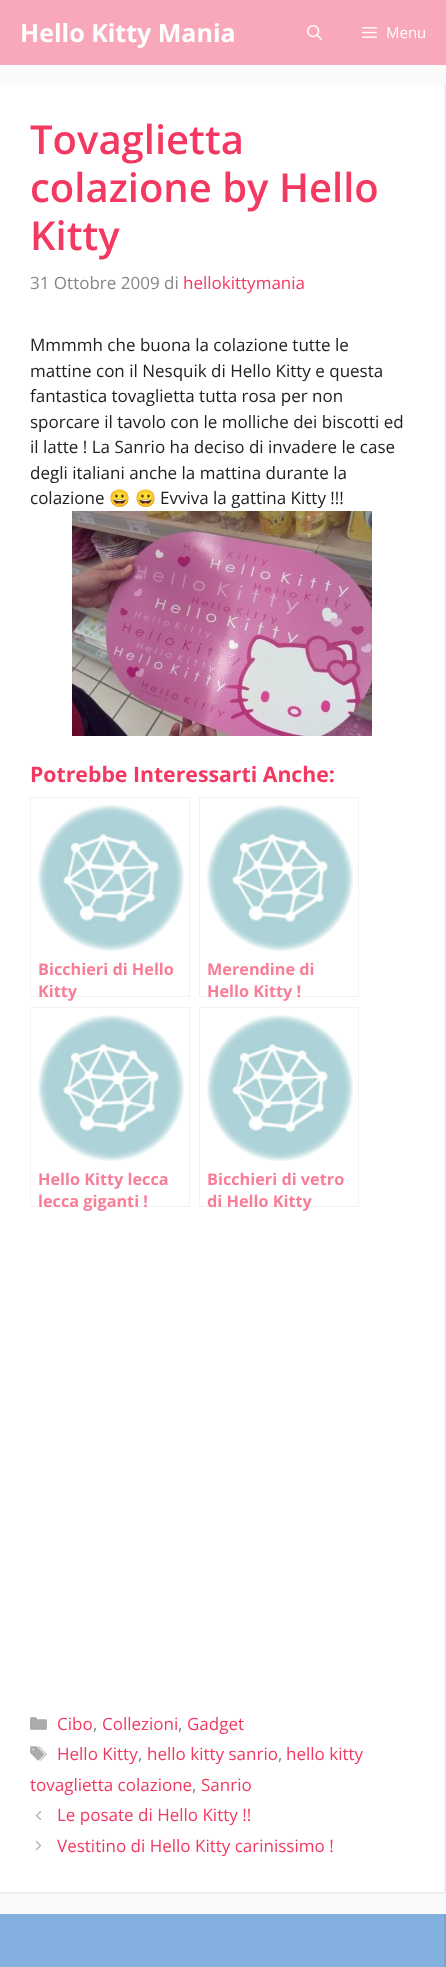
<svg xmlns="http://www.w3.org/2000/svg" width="446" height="1967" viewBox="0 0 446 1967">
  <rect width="100%" height="100%" fill="#fafafa"/>
  <rect x="0" y="0" width="446" height="65" fill="#f8a8b9"/>
  <text x="20" y="42" font-family="Open Sans" font-size="25" font-weight="bold" fill="#ffffff">Hello Kitty Mania</text>
  <image x="307" y="25" width="15" height="15" href="img1.png"/>
  <image x="362" y="27" width="15" height="11" href="img2.png"/>
  <text x="386" y="38" font-family="Open Sans" font-size="15" fill="#ffffff">Menu</text>
  <rect x="0" y="85" width="446" height="1809" fill="#ffffff"/>
  <path d="M446 85V1894L444 1892V85Z" fill="#ededed"/>
  <path d="M446 1894H0V1892H444Z" fill="#000000" fill-opacity="0.07"/>
  <text x="30" y="154" font-family="Open Sans" font-size="40" font-weight="600" fill="#f33861">Tovaglietta</text>
  <text x="30" y="202" font-family="Open Sans" font-size="40" font-weight="600" fill="#f33861">colazione by Hello</text>
  <text x="30" y="250" font-family="Open Sans" font-size="40" font-weight="600" fill="#f33861">Kitty</text>
  <text x="30" y="289" font-family="Open Sans" font-size="17" fill="#878787">31 Ottobre 2009 di</text>
  <text x="183" y="289" font-family="Open Sans" font-size="17" fill="#f33861">hellokittymania</text>
  <text x="30" y="351" font-family="Open Sans" font-size="17" fill="#212121">Mmmmh che buona la colazione tutte le</text>
  <text x="30" y="377" font-family="Open Sans" font-size="17" fill="#212121">mattine con il Nesquik di Hello Kitty e questa</text>
  <text x="30" y="402" font-family="Open Sans" font-size="17" fill="#212121">fantastica tovaglietta tutta rosa per non</text>
  <text x="30" y="428" font-family="Open Sans" font-size="17" fill="#212121">sporcare il tavolo con le molliche dei biscotti ed</text>
  <text x="30" y="453" font-family="Open Sans" font-size="17" fill="#212121">il latte ! La Sanrio ha deciso di invadere le case</text>
  <text x="30" y="479" font-family="Open Sans" font-size="17" fill="#212121">degli italiani anche la mattina durante la</text>
  <text x="30" y="504" font-family="Open Sans" font-size="17" fill="#212121">colazione</text>
  <text x="109" y="504" font-family="Noto Color Emoji" font-size="17" fill="#212121">😀</text>
  <text x="135" y="504" font-family="Noto Color Emoji" font-size="17" fill="#212121">😀</text>
  <text x="160" y="504" font-family="Open Sans" font-size="17" fill="#212121">Evviva la gattina Kitty !!!</text>
  <image x="72" y="511" width="300" height="225" href="img3.png"/>
  <text x="30" y="782" font-family="Open Sans" font-size="21.25" font-weight="bold" fill="#f33861">Potrebbe Interessarti Anche:</text>
  <rect x="30.5" y="797.5" width="159" height="199" fill="none" stroke="#f2f2f2"/>
  <image x="37" y="804" width="147" height="147" href="img4.png"/>
  <text x="38" y="975" font-family="Open Sans" font-size="16.25" font-weight="bold" fill="#f87e98">Bicchieri di Hello</text>
  <text x="38" y="997" font-family="Open Sans" font-size="16.25" font-weight="bold" fill="#f87e98">Kitty</text>
  <rect x="199.5" y="797.5" width="159" height="199" fill="none" stroke="#f2f2f2"/>
  <image x="206" y="804" width="147" height="147" href="img5.png"/>
  <text x="207" y="975" font-family="Open Sans" font-size="16.25" font-weight="bold" fill="#f87e98">Merendine di</text>
  <text x="207" y="997" font-family="Open Sans" font-size="16.25" font-weight="bold" fill="#f87e98">Hello Kitty !</text>
  <rect x="30.5" y="1007.5" width="159" height="199" fill="none" stroke="#f2f2f2"/>
  <image x="37" y="1014" width="147" height="147" href="img4.png"/>
  <text x="38" y="1185" font-family="Open Sans" font-size="16.25" font-weight="bold" fill="#f87e98">Hello Kitty lecca</text>
  <text x="38" y="1207" font-family="Open Sans" font-size="16.25" font-weight="bold" fill="#f87e98">lecca giganti !</text>
  <rect x="199.5" y="1007.5" width="159" height="199" fill="none" stroke="#f2f2f2"/>
  <image x="206" y="1014" width="147" height="147" href="img5.png"/>
  <text x="207" y="1185" font-family="Open Sans" font-size="16.25" font-weight="bold" fill="#f87e98">Bicchieri di vetro</text>
  <text x="207" y="1207" font-family="Open Sans" font-size="16.25" font-weight="bold" fill="#f87e98">di Hello Kitty</text>
  <image x="30" y="1717" width="17" height="13" href="img6.png"/>
  <text x="57" y="1730" font-family="Open Sans" font-size="17" fill="#f33861">Cibo</text>
  <text x="93" y="1730" font-family="Open Sans" font-size="17" fill="#878787">,</text>
  <text x="102" y="1730" font-family="Open Sans" font-size="17" fill="#f33861">Collezioni</text>
  <text x="178" y="1730" font-family="Open Sans" font-size="17" fill="#878787">,</text>
  <text x="187" y="1730" font-family="Open Sans" font-size="17" fill="#f33861">Gadget</text>
  <image x="30" y="1746" width="17" height="15" href="img7.png"/>
  <text x="57" y="1760" font-family="Open Sans" font-size="17" fill="#f33861">Hello Kitty</text>
  <text x="138" y="1760" font-family="Open Sans" font-size="17" fill="#878787">,</text>
  <text x="147" y="1760" font-family="Open Sans" font-size="17" fill="#f33861">hello kitty sanrio</text>
  <text x="278" y="1760" font-family="Open Sans" font-size="17" fill="#878787">,</text>
  <text x="286" y="1760" font-family="Open Sans" font-size="17" fill="#f33861">hello kitty</text>
  <text x="30" y="1791" font-family="Open Sans" font-size="17" fill="#f33861">tovaglietta colazione</text>
  <text x="192" y="1791" font-family="Open Sans" font-size="17" fill="#878787">,</text>
  <text x="201" y="1791" font-family="Open Sans" font-size="17" fill="#f33861">Sanrio</text>
  <image x="35" y="1810" width="7" height="11" href="img8.png"/>
  <text x="57" y="1821" font-family="Open Sans" font-size="17" fill="#f33861">Le posate di Hello Kitty !!</text>
  <image x="35" y="1840" width="7" height="11" href="img9.png"/>
  <text x="57" y="1852" font-family="Open Sans" font-size="17" fill="#f33861">Vestitino di Hello Kitty carinissimo !</text>
  <rect x="0" y="1914" width="444" height="53" fill="#83b0de"/>
  <path d="M446 1914V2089L444 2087V1914Z" fill="#7aa4ce"/>
</svg>
